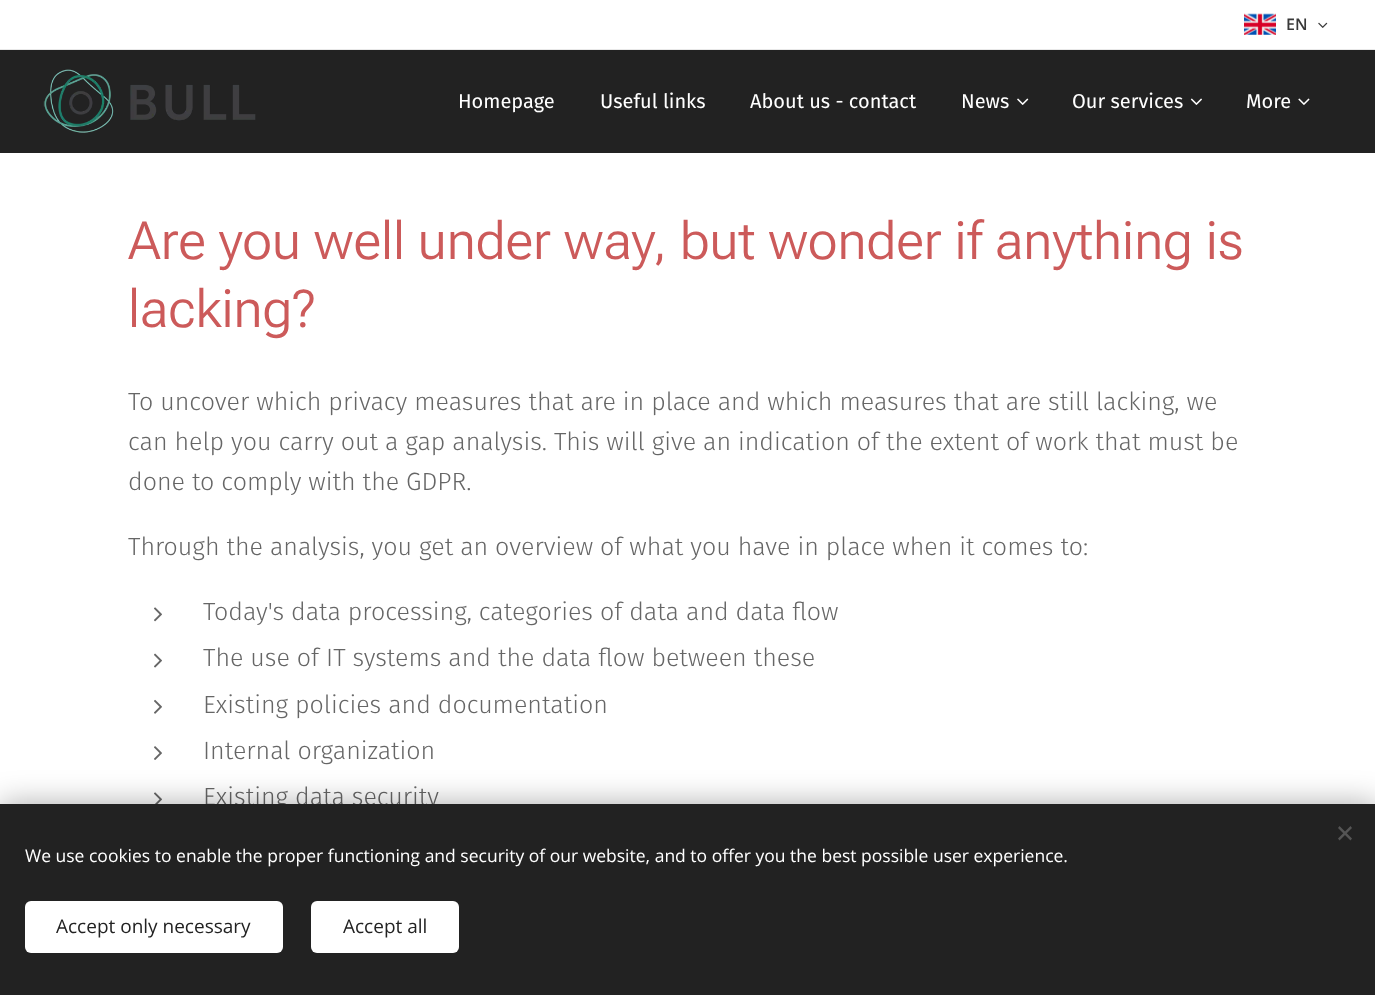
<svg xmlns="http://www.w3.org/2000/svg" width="1375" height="995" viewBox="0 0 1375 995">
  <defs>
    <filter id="blur1" x="-50%" y="-200%" width="200%" height="500%"><feGaussianBlur stdDeviation="15.5"/></filter>
  </defs>
  <rect width="100%" height="100%" fill="#ffffff"/>
  <image x="1244" y="13" width="32" height="22" href="img1.png"/>
  <text x="1286" y="30" font-family="Open Sans" font-size="16" font-weight="600" fill="#393939">EN</text>
  <image x="1318" y="22" width="10" height="6" href="img2.png"/>
  <rect x="0" y="49" width="1375" height="1" fill="#e8e8e8"/>
  <rect x="0" y="50" width="1375" height="103" fill="#222222"/>
  <image x="43" y="69" width="213" height="64" href="img3.png"/>
  <text x="458" y="108" font-family="Fira Sans" font-size="20" fill="#ffffff">Homepage</text>
  <text x="600" y="108" font-family="Fira Sans" font-size="20" fill="#ffffff">Useful links</text>
  <text x="750" y="108" font-family="Fira Sans" font-size="20" fill="#ffffff">About us - contact</text>
  <text x="961" y="108" font-family="Fira Sans" font-size="20" fill="#ffffff">News</text>
  <image x="1017" y="98" width="12" height="7" href="img4.png"/>
  <text x="1072" y="108" font-family="Fira Sans" font-size="20" fill="#ffffff">Our services</text>
  <image x="1190" y="98" width="12" height="7" href="img5.png"/>
  <text x="1246" y="108" font-family="Fira Sans" font-size="20" fill="#ffffff">More</text>
  <image x="1298" y="98" width="12" height="7" href="img6.png"/>
  <text x="128" y="259" font-family="Roboto Flex" font-size="52.5" font-weight="300" fill="#cc5a5a">Are you well under way, but wonder if anything is</text>
  <text x="128" y="327" font-family="Roboto Flex" font-size="52.5" font-weight="300" fill="#cc5a5a">lacking?</text>
  <text x="128" y="410" font-family="Fira Sans" font-size="25" font-weight="300" fill="#666666">To uncover which privacy measures that are in place and which measures that are still lacking, we</text>
  <text x="128" y="450" font-family="Fira Sans" font-size="25" font-weight="300" fill="#666666">can help you carry out a gap analysis. This will give an indication of the extent of work that must be</text>
  <text x="128" y="490" font-family="Fira Sans" font-size="25" font-weight="300" fill="#666666">done to comply with the GDPR.</text>
  <text x="128" y="555" font-family="Fira Sans" font-size="25" font-weight="300" fill="#666666">Through the analysis, you get an overview of what you have in place when it comes to:</text>
  <image x="154" y="607" width="8" height="15" href="img7.png"/>
  <text x="203" y="620" font-family="Fira Sans" font-size="25" font-weight="300" fill="#666666">Today's data processing, categories of data and data flow</text>
  <image x="154" y="653" width="8" height="15" href="img8.png"/>
  <text x="203" y="666" font-family="Fira Sans" font-size="25" font-weight="300" fill="#666666">The use of IT systems and the data flow between these</text>
  <image x="154" y="699" width="8" height="15" href="img9.png"/>
  <text x="203" y="713" font-family="Fira Sans" font-size="25" font-weight="300" fill="#666666">Existing policies and documentation</text>
  <image x="154" y="746" width="8" height="14" href="img10.png"/>
  <text x="203" y="759" font-family="Fira Sans" font-size="25" font-weight="300" fill="#666666">Internal organization</text>
  <image x="154" y="792" width="8" height="12" href="img11.png"/>
  <text x="203" y="805" font-family="Fira Sans" font-size="25" font-weight="300" fill="#666666">Existing data security</text>
  <rect x="0" y="804" width="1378" height="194" fill="#000000" fill-opacity="0.33" filter="url(#blur1)"/>
  <rect x="0" y="804" width="1375" height="191" fill="#222222"/>
  <path d="M1338 838.5L1350.5 826L1352 828L1339.5 840.5Z" fill="#555555"/>
  <path d="M1339.5 826L1352 838.5L1350.5 840.5L1338 828Z" fill="#555555"/>
  <text x="25" y="862" font-family="Open Sans" font-size="17.5" fill="#ffffff">We use cookies to enable the proper functioning and security of our website, and to offer you the best possible user experience.</text>
  <rect x="25" y="901" width="258" height="52" rx="6" fill="#ffffff"/>
  <text x="56" y="933" font-family="Open Sans" font-size="19" fill="#222222">Accept only necessary</text>
  <rect x="311" y="901" width="148" height="52" rx="6" fill="#ffffff"/>
  <text x="343" y="933" font-family="Open Sans" font-size="19" fill="#222222">Accept all</text>
</svg>
